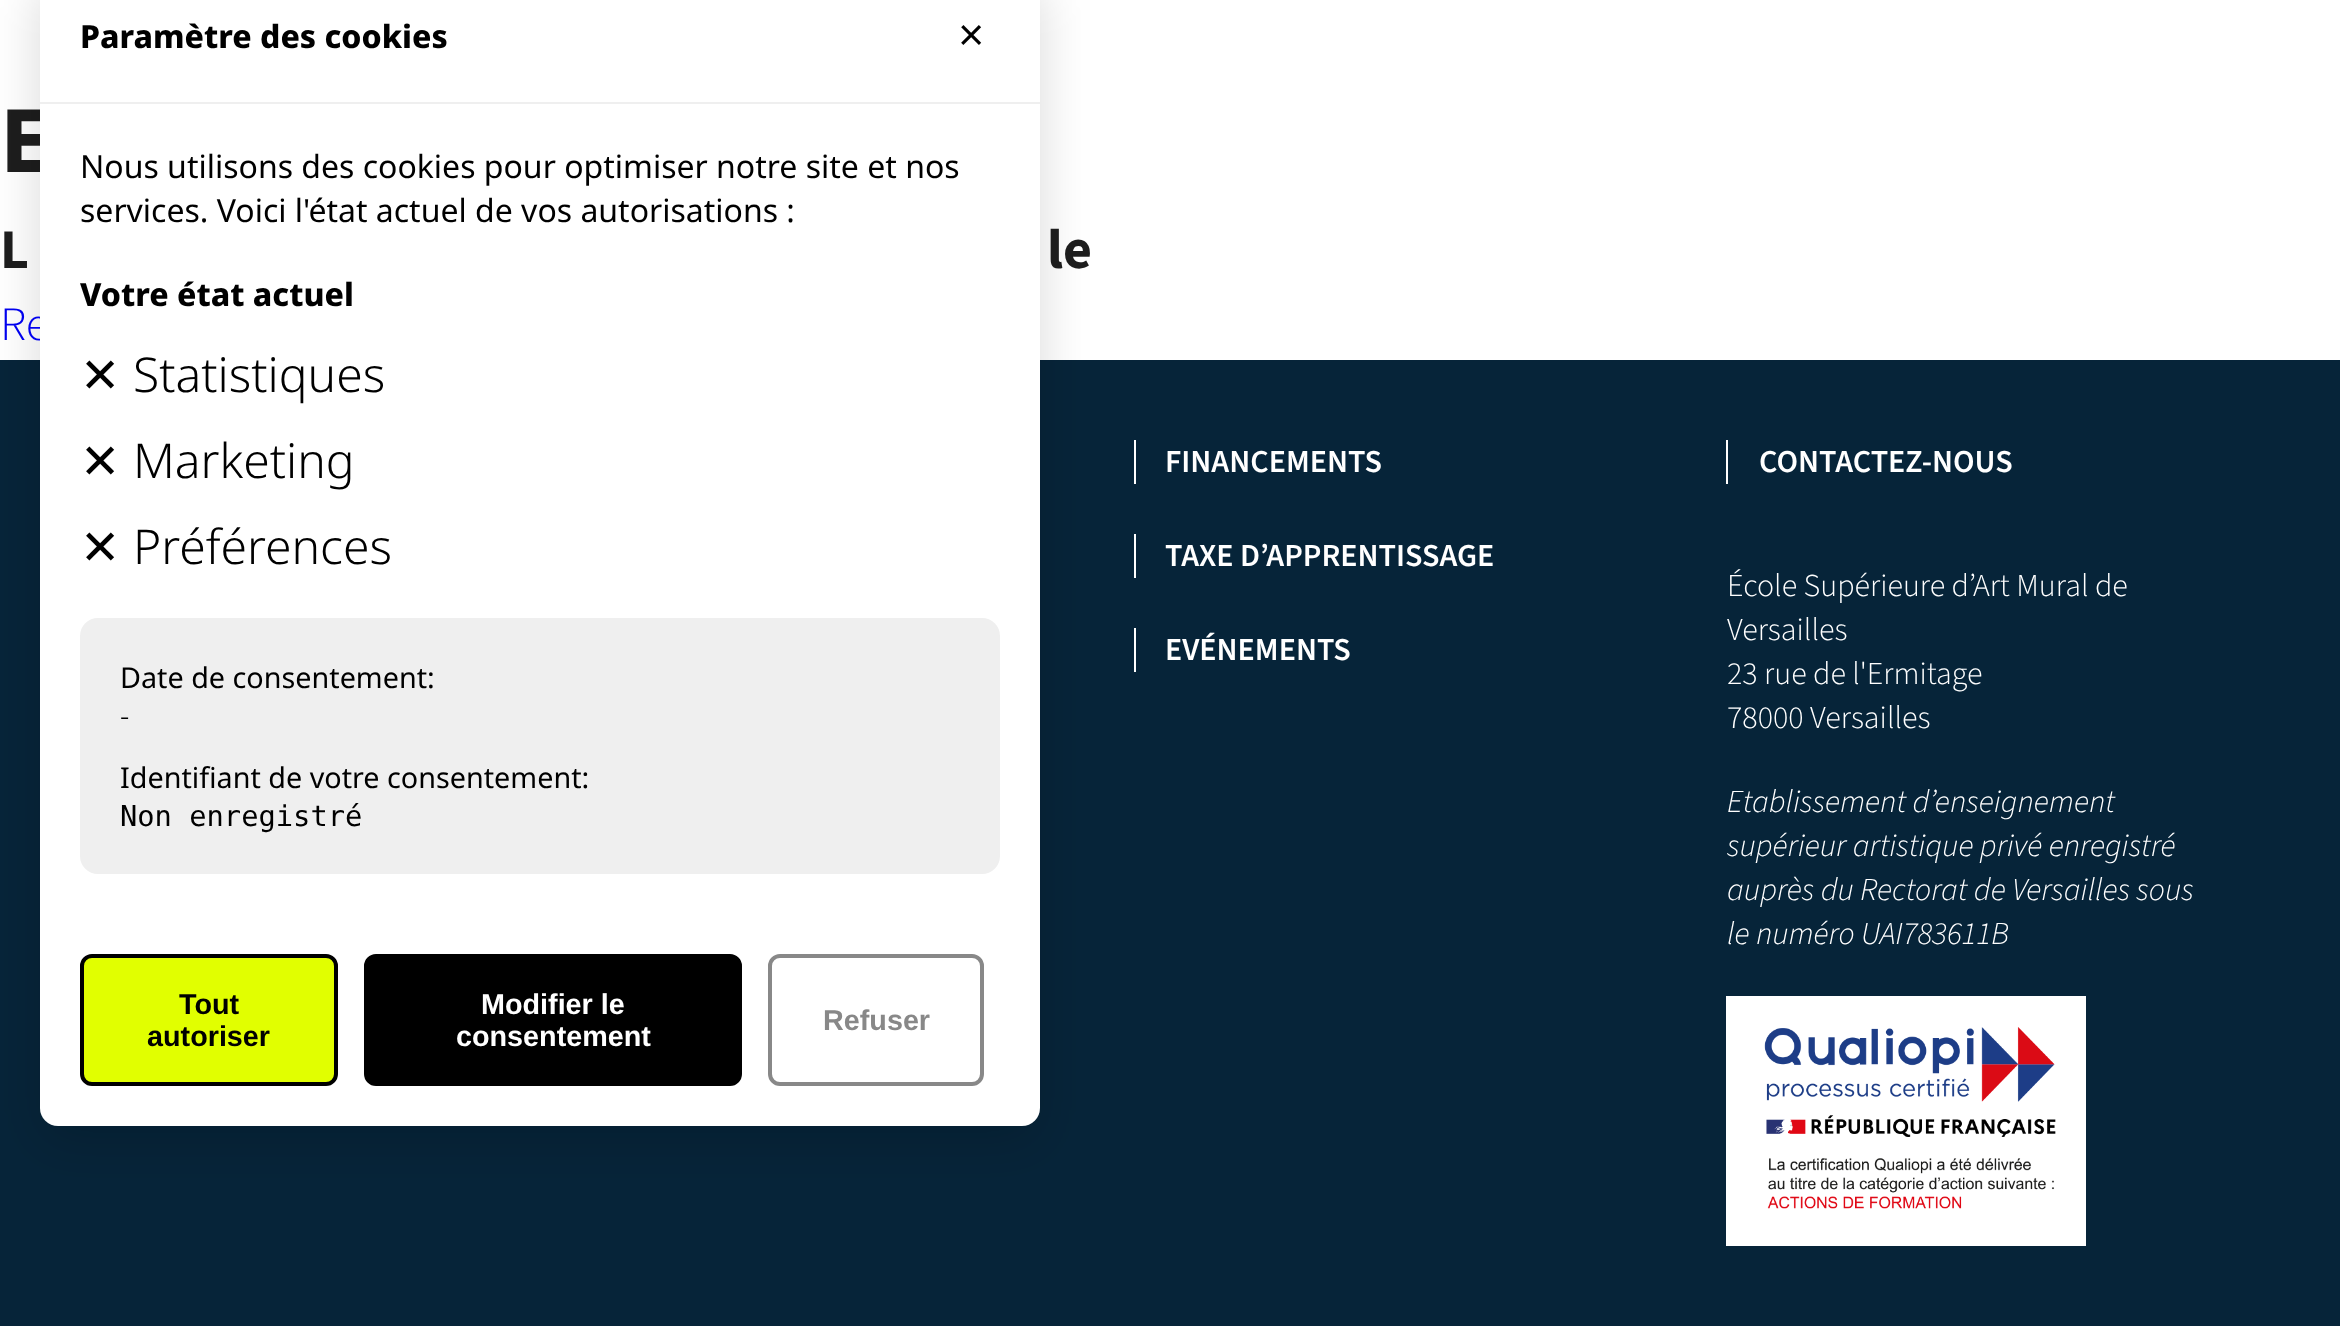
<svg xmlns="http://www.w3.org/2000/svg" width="2340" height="1326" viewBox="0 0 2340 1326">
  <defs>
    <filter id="blur1" x="-50%" y="-200%" width="200%" height="500%"><feGaussianBlur stdDeviation="25"/></filter>
  </defs>
  <rect width="100%" height="100%" fill="#ffffff"/>
  <text x="0" y="172" font-family="'Source Sans 3'" font-size="96" font-weight="bold" fill="#1d1d1d">E</text>
  <rect x="0" y="360" width="2340" height="966" fill="#062439"/>
  <rect x="40" y="-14" width="1000" height="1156" rx="18" fill="#000000" fill-opacity="0.15" filter="url(#blur1)"/>
  <text x="0" y="340" font-family="'Source Sans 3'" font-size="48" font-weight="300" fill="#0000ee">Re</text>
  <rect x="40" y="-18" width="1000" height="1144" rx="18" fill="#ffffff"/>
  <rect x="40" y="102" width="1000" height="2" fill="#efefef"/>
  <text x="80" y="48" font-family="Noto Sans" font-size="32" font-weight="800" fill="#000000">Paramètre des cookies</text>
  <text x="958" y="50" font-family="Liberation Sans" font-size="45" fill="#000000">×</text>
  <text x="80" y="178" font-family="Noto Sans" font-size="32" fill="#000000">Nous utilisons des cookies pour optimiser notre site et nos</text>
  <text x="80" y="222" font-family="Noto Sans" font-size="32" fill="#000000">services. Voici l'état actuel de vos autorisations :</text>
  <text x="80" y="306" font-family="Noto Sans" font-size="32" font-weight="800" fill="#000000">Votre état actuel</text>
  <text x="80" y="392" font-family="DejaVu Sans" font-size="48" fill="#000000">✕</text>
  <text x="133" y="392" font-family="Noto Sans" font-size="48" font-weight="300" fill="#000000">Statistiques</text>
  <text x="80" y="478" font-family="DejaVu Sans" font-size="48" fill="#000000">✕</text>
  <text x="133" y="478" font-family="Noto Sans" font-size="48" font-weight="300" fill="#000000">Marketing</text>
  <text x="80" y="564" font-family="DejaVu Sans" font-size="48" fill="#000000">✕</text>
  <text x="133" y="564" font-family="Noto Sans" font-size="48" font-weight="300" fill="#000000">Préférences</text>
  <rect x="80" y="618" width="920" height="256" rx="18" fill="#efefef"/>
  <text x="120" y="688" font-family="Noto Sans" font-size="28.75" fill="#000000">Date de consentement:</text>
  <text x="120" y="726" font-family="Noto Sans" font-size="28.75" font-weight="300" fill="#000000">-</text>
  <text x="120" y="788" font-family="Noto Sans" font-size="28.75" fill="#000000">Identifiant de votre consentement:</text>
  <text x="120" y="826" font-family="DejaVu Sans Mono" font-size="28.75" fill="#000000">Non enregistré</text>
  <rect x="82" y="956" width="254" height="128" rx="10" fill="#e1ff00" stroke="#000000" stroke-width="4"/>
  <text x="179" y="1014" font-family="Liberation Sans" font-size="28.75" font-weight="bold" fill="#000000">Tout</text>
  <text x="147" y="1046" font-family="Liberation Sans" font-size="28.75" font-weight="bold" fill="#000000">autoriser</text>
  <rect x="366" y="956" width="374" height="128" rx="10" fill="#000000" stroke="#000000" stroke-width="4"/>
  <text x="481" y="1014" font-family="Liberation Sans" font-size="28.75" font-weight="bold" fill="#ffffff">Modifier le</text>
  <text x="456" y="1046" font-family="Liberation Sans" font-size="28.75" font-weight="bold" fill="#ffffff">consentement</text>
  <rect x="770" y="956" width="212" height="128" rx="10" fill="none" stroke="#888888" stroke-width="4"/>
  <text x="823" y="1030" font-family="Liberation Sans" font-size="28.75" font-weight="bold" fill="#888888">Refuser</text>
  <text x="0" y="268" font-family="'Source Sans 3'" font-size="56" font-weight="bold" fill="#1d1d1d">L</text>
  <text x="1047" y="268" font-family="'Source Sans 3'" font-size="56" font-weight="bold" fill="#1d1d1d">le</text>
  <rect x="1134" y="440" width="2" height="44" fill="#ffffff"/>
  <text x="1165" y="472" font-family="'Source Sans 3'" font-size="32" font-weight="600" fill="#ffffff">FINANCEMENTS</text>
  <rect x="1134" y="534" width="2" height="44" fill="#ffffff"/>
  <text x="1165" y="566" font-family="'Source Sans 3'" font-size="32" font-weight="600" fill="#ffffff">TAXE D’APPRENTISSAGE</text>
  <rect x="1134" y="628" width="2" height="44" fill="#ffffff"/>
  <text x="1165" y="660" font-family="'Source Sans 3'" font-size="32" font-weight="600" fill="#ffffff">EVÉNEMENTS</text>
  <rect x="1726" y="440" width="2" height="44" fill="#ffffff"/>
  <text x="1759" y="472" font-family="'Source Sans 3'" font-size="32" font-weight="600" fill="#ffffff">CONTACTEZ-NOUS</text>
  <text x="1727" y="596" font-family="'Source Sans 3'" font-size="32" font-weight="300" fill="#ffffff">École Supérieure d’Art Mural de</text>
  <text x="1727" y="640" font-family="'Source Sans 3'" font-size="32" font-weight="300" fill="#ffffff">Versailles</text>
  <text x="1727" y="684" font-family="'Source Sans 3'" font-size="32" font-weight="300" fill="#ffffff">23 rue de l'Ermitage</text>
  <text x="1727" y="728" font-family="'Source Sans 3'" font-size="32" font-weight="300" fill="#ffffff">78000 Versailles</text>
  <text x="1727" y="812" font-family="'Source Sans 3'" font-size="32" font-weight="300" font-style="italic" fill="#ffffff">Etablissement d’enseignement</text>
  <text x="1727" y="856" font-family="'Source Sans 3'" font-size="32" font-weight="300" font-style="italic" fill="#ffffff">supérieur artistique privé enregistré</text>
  <text x="1727" y="900" font-family="'Source Sans 3'" font-size="32" font-weight="300" font-style="italic" fill="#ffffff">auprès du Rectorat de Versailles sous</text>
  <text x="1727" y="944" font-family="'Source Sans 3'" font-size="32" font-weight="300" font-style="italic" fill="#ffffff">le numéro UAI783611B</text>
  <rect x="1726" y="996" width="360" height="250" fill="#ffffff"/>
  <image x="1764" y="1027" width="292" height="182" href="img1.png"/>
</svg>
